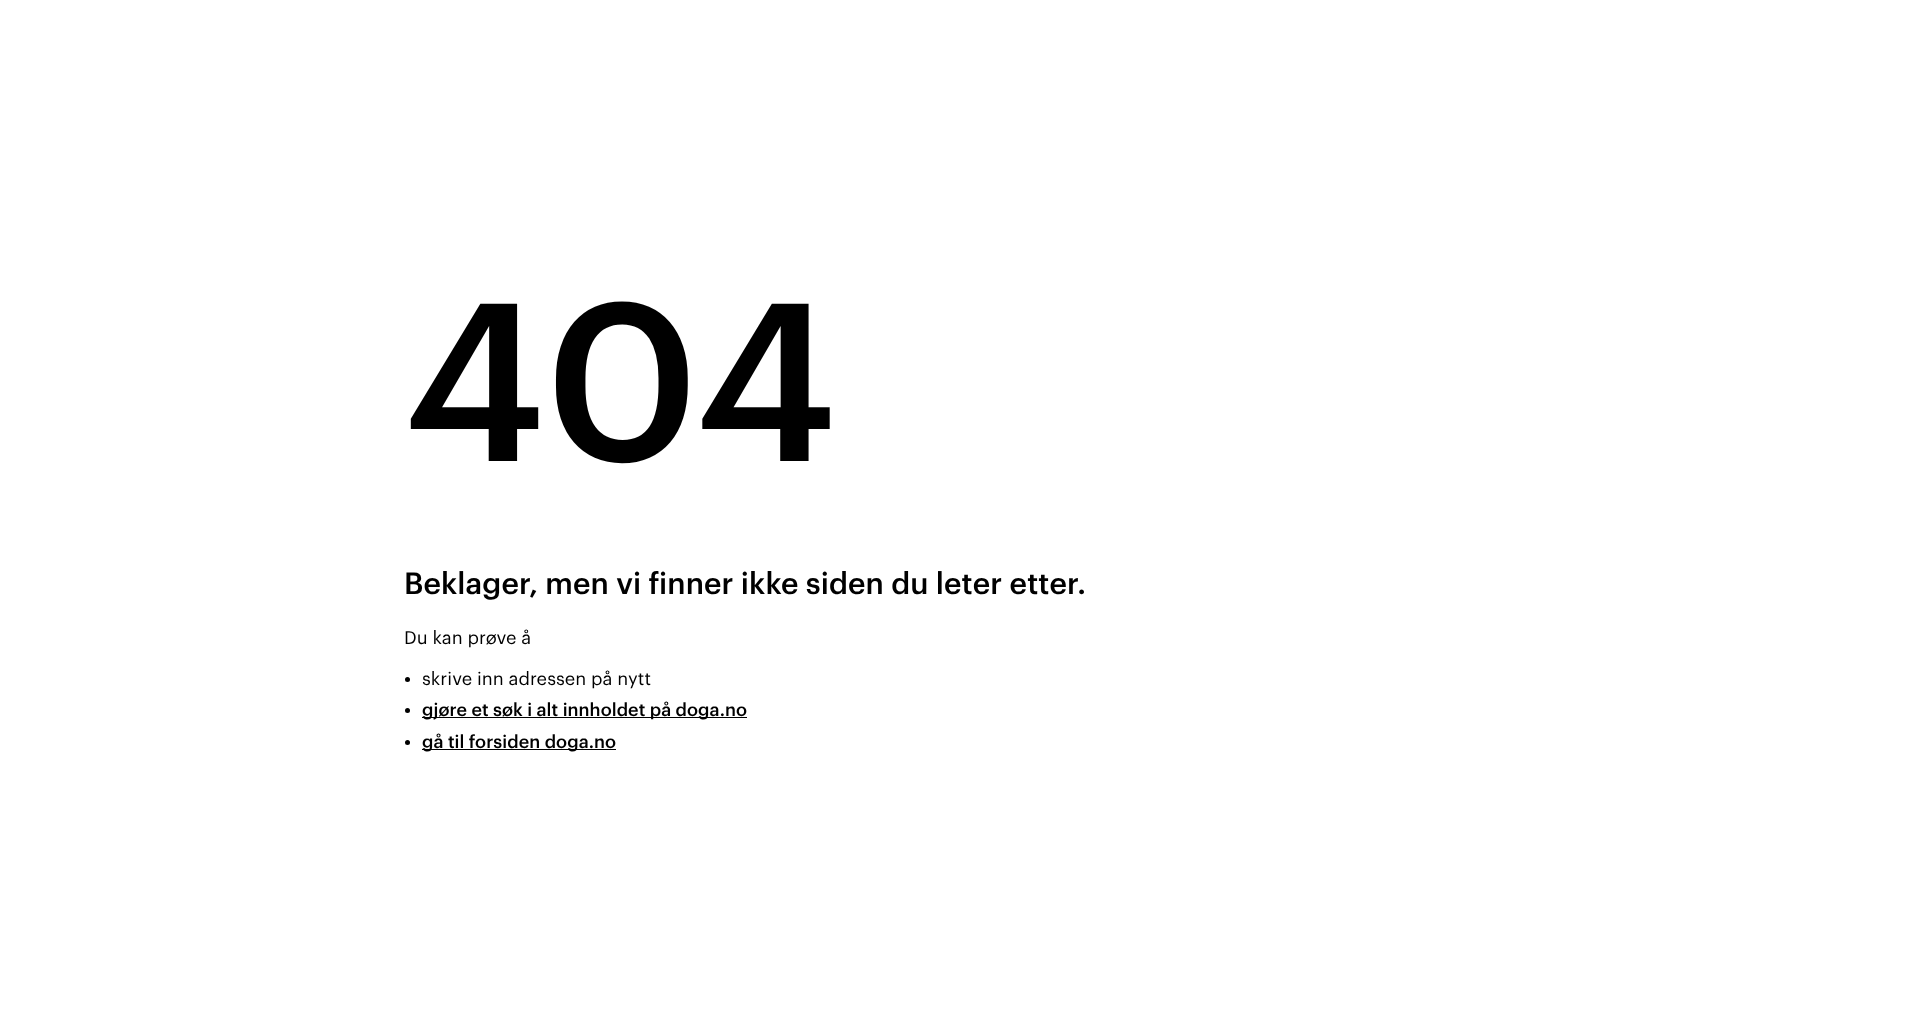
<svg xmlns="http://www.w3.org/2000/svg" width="1907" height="1035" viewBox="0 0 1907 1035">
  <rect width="100%" height="100%" fill="#ffffff"/>
  <text x="404" y="461" font-family="Graphik" font-size="220" font-weight="500" fill="#000000">404</text>
  <text x="404" y="594" font-family="Graphik" font-size="30" font-weight="500" fill="#000000">Beklager, men vi finner ikke siden du leter etter.</text>
  <text x="404" y="644" font-family="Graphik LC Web" font-size="18" fill="#000000">Du kan prøve å</text>
  <circle cx="407.5" cy="679.5" r="2.5" fill="#000000"/>
  <text x="422" y="685" font-family="Graphik LC Web" font-size="18" fill="#000000">skrive inn adressen på nytt</text>
  <circle cx="407.5" cy="710.5" r="2.5" fill="#000000"/>
  <rect x="422" y="717" width="325" height="1" fill="#000000"/>
  <text x="422" y="716" font-family="Graphik" font-size="18" font-weight="500" fill="#000000">gjøre et søk i alt innholdet på doga.no</text>
  <circle cx="407.5" cy="742.5" r="2.5" fill="#000000"/>
  <rect x="422" y="749" width="194" height="1" fill="#000000"/>
  <text x="422" y="748" font-family="Graphik" font-size="18" font-weight="500" fill="#000000">gå til forsiden doga.no</text>
</svg>
